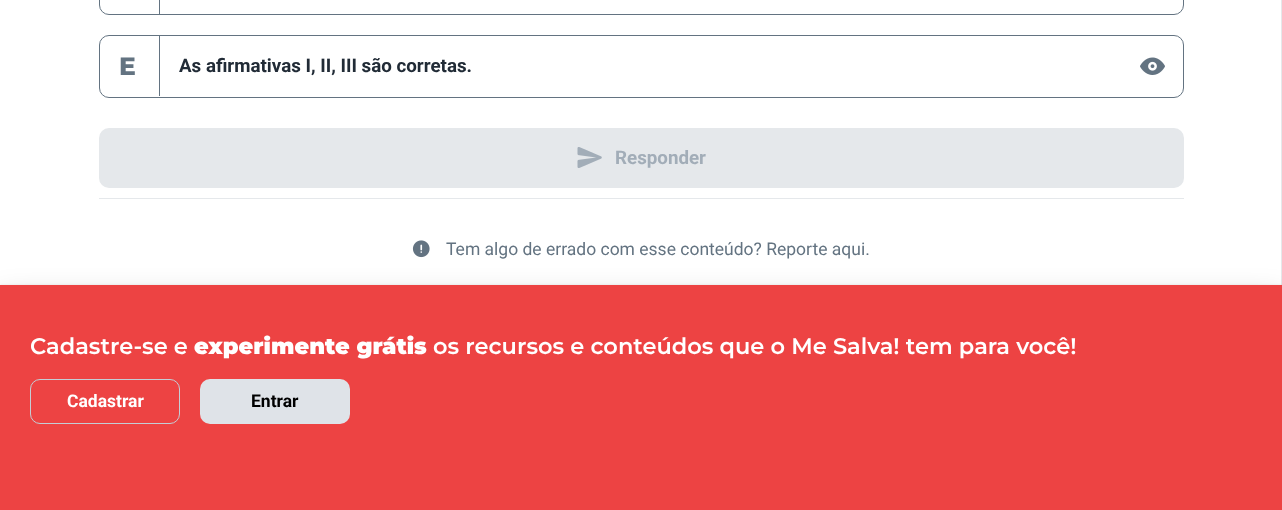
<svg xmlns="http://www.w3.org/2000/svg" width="1282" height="510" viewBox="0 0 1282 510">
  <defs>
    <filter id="blur1" x="-50%" y="-200%" width="200%" height="500%"><feGaussianBlur stdDeviation="15"/></filter>
    <filter id="blur2" x="-50%" y="-200%" width="200%" height="500%"><feGaussianBlur stdDeviation="1"/></filter>
  </defs>
  <rect width="100%" height="100%" fill="#ffffff"/>
  <rect x="1281" y="0" width="1" height="285" fill="#e5e8eb"/>
  <rect x="99.5" y="-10.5" width="1084" height="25" rx="9.5" fill="none" stroke="#637381"/>
  <rect x="159" y="0" width="1" height="14" fill="#637381"/>
  <rect x="99.5" y="35.5" width="1084" height="62" rx="9.5" fill="none" stroke="#637381"/>
  <rect x="159" y="36" width="1" height="60" fill="#637381"/>
  <text x="119" y="75" font-family="Montserrat" font-size="25" font-weight="800" fill="#637381">E</text>
  <text x="179" y="72" font-family="Roboto" font-size="18.75" font-weight="bold" fill="#212b36">As afirmativas I, II, III são corretas.</text>
  <image x="1140" y="57" width="25" height="18" href="img1.png"/>
  <rect x="99" y="128" width="1085" height="60" rx="10" fill="#e5e8eb"/>
  <image x="577" y="147" width="25" height="21" href="img2.png"/>
  <text x="615" y="164" font-family="Roboto" font-size="18.75" font-weight="bold" fill="#a2adb8">Responder</text>
  <rect x="99" y="198" width="1085" height="1" fill="#e5e8eb"/>
  <image x="412" y="240" width="18" height="18" href="img3.png"/>
  <text x="446" y="255" font-family="Roboto" font-size="17.5" fill="#637381">Tem algo de errado com esse conteúdo? Reporte aqui.</text>
  <rect x="0" y="300" width="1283" height="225" fill="#000000" fill-opacity="0.24" filter="url(#blur1)"/>
  <rect x="0" y="285" width="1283" height="225" fill="#929f8e" fill-opacity="0.24" filter="url(#blur2)"/>
  <rect x="0" y="285" width="1282" height="225" fill="#ed4343"/>
  <text x="30" y="354" font-family="Montserrat" font-size="22.5" font-weight="600" fill="#ffffff">Cadastre-se e</text>
  <text x="194" y="354" font-family="Montserrat" font-size="22.5" font-weight="900" fill="#ffffff">experimente grátis</text>
  <text x="433" y="354" font-family="Montserrat" font-size="22.5" font-weight="600" fill="#ffffff">os recursos e conteúdos que o Me Salva! tem para você!</text>
  <rect x="30.5" y="379.5" width="149" height="44" rx="9.5" fill="none" stroke="#c4cdd5"/>
  <text x="67" y="407" font-family="Roboto" font-size="17.5" font-weight="bold" fill="#ffffff">Cadastrar</text>
  <rect x="200" y="379" width="150" height="45" rx="10" fill="#dfe3e8"/>
  <text x="251" y="407" font-family="Roboto" font-size="17.5" font-weight="bold" fill="#000000">Entrar</text>
</svg>
